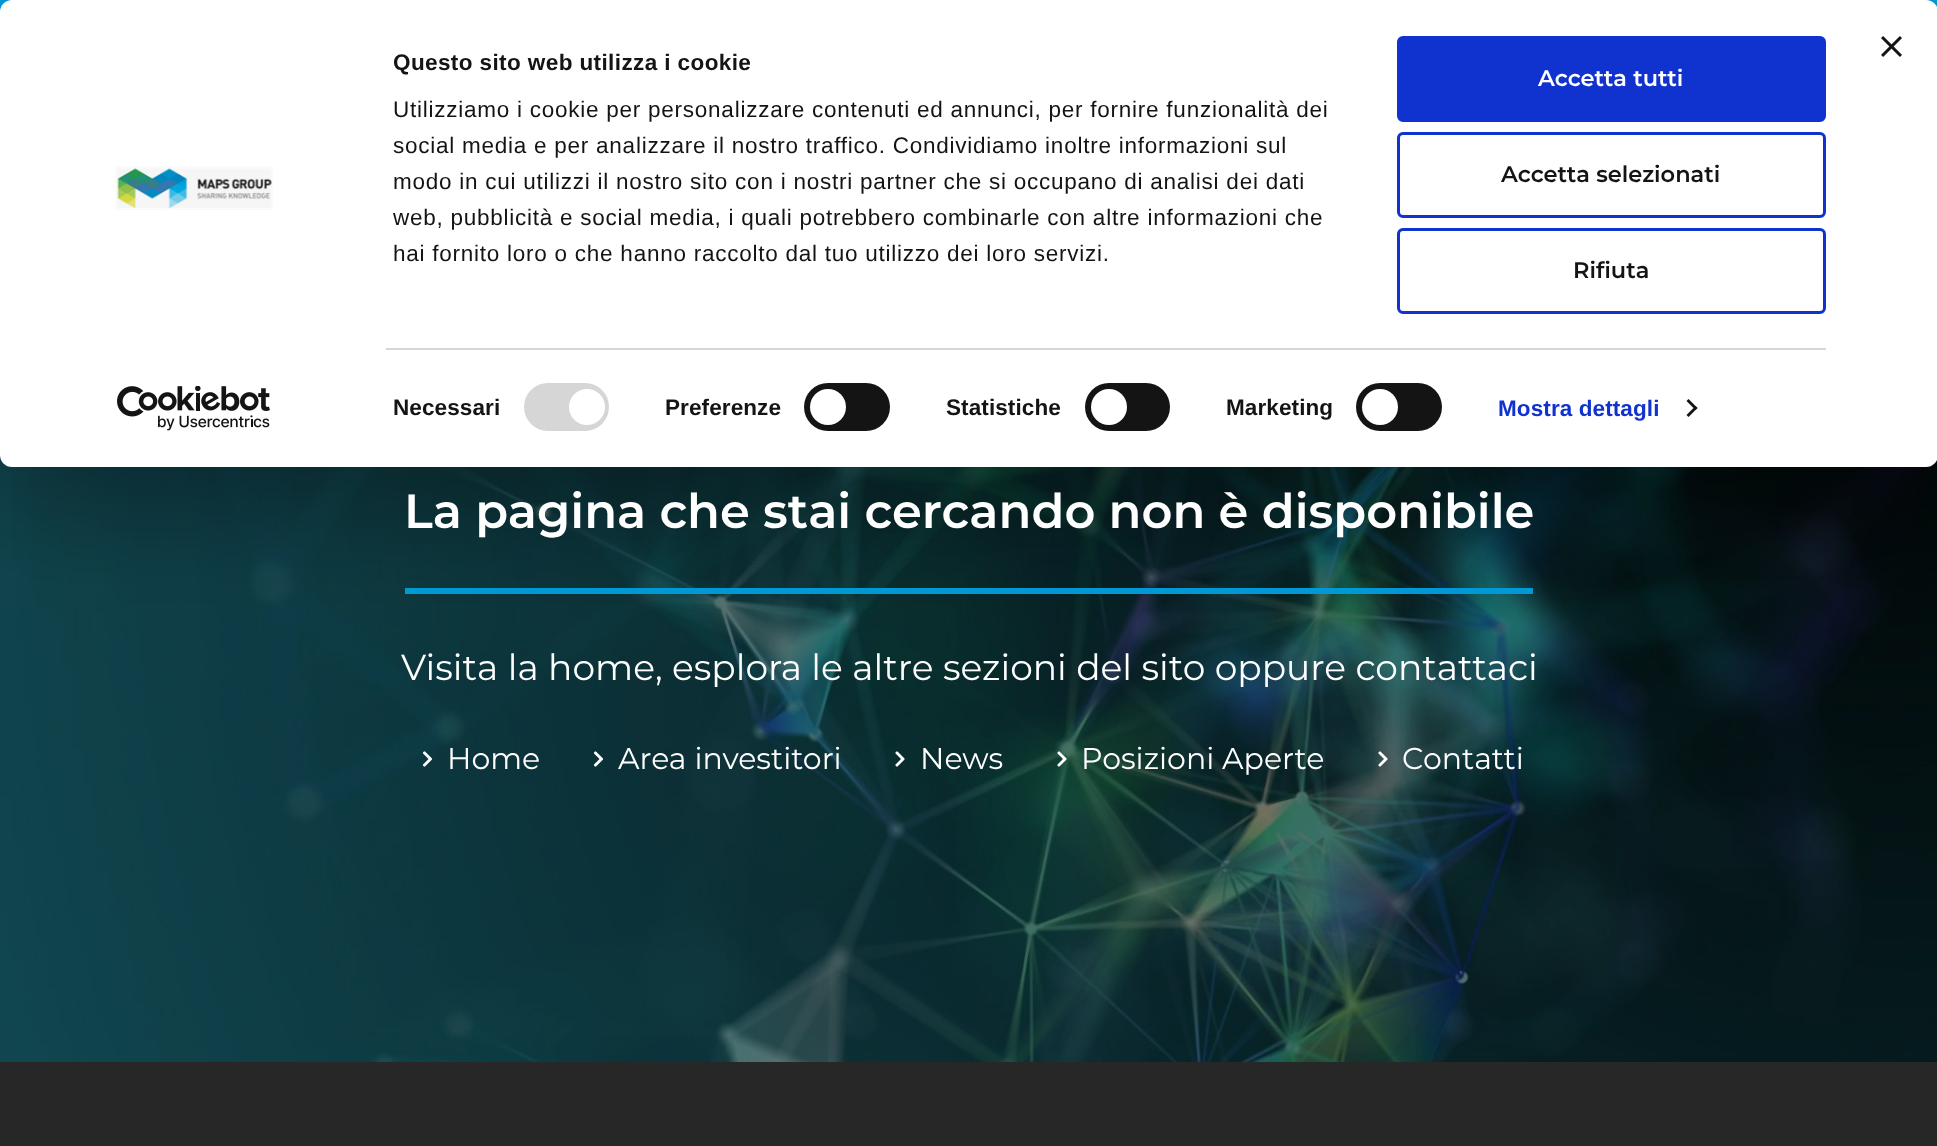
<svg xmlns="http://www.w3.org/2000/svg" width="1937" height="1146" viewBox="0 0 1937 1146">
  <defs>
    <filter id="blur1" x="-50%" y="-200%" width="200%" height="500%"><feGaussianBlur stdDeviation="52.5"/></filter>
  </defs>
  <rect width="100%" height="100%" fill="#272727"/>
  <rect x="0" y="0" width="1937" height="12" fill="#009bd9"/>
  <image x="0" y="455" width="1937" height="607" href="img4.png"/>
  <rect x="405" y="588" width="1128" height="6" fill="#009bd9"/>
  <rect x="0" y="45" width="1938" height="467" rx="12" fill="#000000" fill-opacity="0.3" filter="url(#blur1)"/>
  <rect x="0" y="0" width="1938" height="467" rx="12" fill="#ffffff"/>
  <image x="1881" y="36" width="21" height="21" href="img1.png"/>
  <text x="393" y="70" font-family="Liberation Sans" font-size="22.5" font-weight="bold" letter-spacing="0.4" fill="#141414">Questo sito web utilizza i cookie</text>
  <text x="393" y="117" font-family="Liberation Sans" font-size="22.5" letter-spacing="0.75" fill="#141414">Utilizziamo i cookie per personalizzare contenuti ed annunci, per fornire funzionalità dei</text>
  <text x="393" y="153" font-family="Liberation Sans" font-size="22.5" letter-spacing="0.75" fill="#141414">social media e per analizzare il nostro traffico. Condividiamo inoltre informazioni sul</text>
  <text x="393" y="189" font-family="Liberation Sans" font-size="22.5" letter-spacing="0.75" fill="#141414">modo in cui utilizzi il nostro sito con i nostri partner che si occupano di analisi dei dati</text>
  <text x="393" y="225" font-family="Liberation Sans" font-size="22.5" letter-spacing="0.75" fill="#141414">web, pubblicità e social media, i quali potrebbero combinarle con altre informazioni che</text>
  <text x="393" y="261" font-family="Liberation Sans" font-size="22.5" letter-spacing="0.75" fill="#141414">hai fornito loro o che hanno raccolto dal tuo utilizzo dei loro servizi.</text>
  <rect x="386" y="348" width="1440" height="2" fill="#d6d6d6"/>
  <text x="393" y="415" font-family="Liberation Sans" font-size="22.5" font-weight="bold" letter-spacing="0.1" fill="#141414">Necessari</text>
  <rect x="524" y="383" width="85" height="48" rx="24" fill="#d6d6d6"/>
  <circle cx="587" cy="407" r="18" fill="#ffffff"/>
  <text x="665" y="415" font-family="Liberation Sans" font-size="22.5" font-weight="bold" letter-spacing="0.1" fill="#141414">Preferenze</text>
  <rect x="804" y="383" width="86" height="48" rx="24" fill="#141414"/>
  <circle cx="828" cy="407" r="18" fill="#ffffff"/>
  <text x="946" y="415" font-family="Liberation Sans" font-size="22.5" font-weight="bold" letter-spacing="0.1" fill="#141414">Statistiche</text>
  <rect x="1085" y="383" width="85" height="48" rx="24" fill="#141414"/>
  <circle cx="1109" cy="407" r="18" fill="#ffffff"/>
  <text x="1226" y="415" font-family="Liberation Sans" font-size="22.5" font-weight="bold" letter-spacing="0.1" fill="#141414">Marketing</text>
  <rect x="1356" y="383" width="86" height="48" rx="24" fill="#141414"/>
  <circle cx="1380" cy="407" r="18" fill="#ffffff"/>
  <text x="1498" y="416" font-family="Liberation Sans" font-size="22.5" font-weight="bold" letter-spacing="0.1" fill="#1032cf">Mostra dettagli</text>
  <path d="M1688.5 399L1697.5 408L1695.5 410L1686.5 401Z" fill="#141414"/>
  <path d="M1695.5 406L1697.5 408L1688.5 417L1686.5 415Z" fill="#141414"/>
  <image x="115" y="166" width="158" height="44" href="img2.png"/>
  <image x="117" y="386" width="153" height="45" href="img3.png"/>
  <rect x="1398.5" y="37.5" width="426" height="83" rx="4.5" fill="#1032cf" stroke="#1032cf" stroke-width="3"/>
  <text x="1538" y="86" font-family="Montserrat" font-size="22.5" font-weight="100" fill="#ffffff">Accetta tutti</text>
  <rect x="1398.5" y="133.5" width="426" height="83" rx="4.5" fill="none" stroke="#1032cf" stroke-width="3"/>
  <text x="1501" y="182" font-family="Montserrat" font-size="22.5" font-weight="100" fill="#141414">Accetta selezionati</text>
  <rect x="1398.5" y="229.5" width="426" height="83" rx="4.5" fill="none" stroke="#1032cf" stroke-width="3"/>
  <text x="1573" y="278" font-family="Montserrat" font-size="22.5" font-weight="100" fill="#141414">Rifiuta</text>
  <text x="404" y="528" font-family="Montserrat" font-size="48" font-weight="100" fill="#ffffff">La pagina che stai cercando non è disponibile</text>
  <text x="401" y="680" font-family="'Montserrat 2'" font-size="36" font-weight="100" fill="#ffffff">Visita la home, esplora le altre sezioni del sito oppure contattaci</text>
  <image x="422" y="751" width="11" height="16" href="img5.png"/>
  <text x="447" y="769" font-family="'Montserrat 2'" font-size="30" font-weight="100" fill="#ffffff">Home</text>
  <image x="593" y="751" width="11" height="16" href="img6.png"/>
  <text x="618" y="769" font-family="'Montserrat 2'" font-size="30" font-weight="100" fill="#ffffff">Area investitori</text>
  <image x="895" y="751" width="10" height="16" href="img7.png"/>
  <text x="920" y="769" font-family="'Montserrat 2'" font-size="30" font-weight="100" fill="#ffffff">News</text>
  <image x="1057" y="751" width="10" height="16" href="img8.png"/>
  <text x="1081" y="769" font-family="'Montserrat 2'" font-size="30" font-weight="100" fill="#ffffff">Posizioni Aperte</text>
  <image x="1378" y="751" width="10" height="16" href="img9.png"/>
  <text x="1402" y="769" font-family="'Montserrat 2'" font-size="30" font-weight="100" fill="#ffffff">Contatti</text>
</svg>
